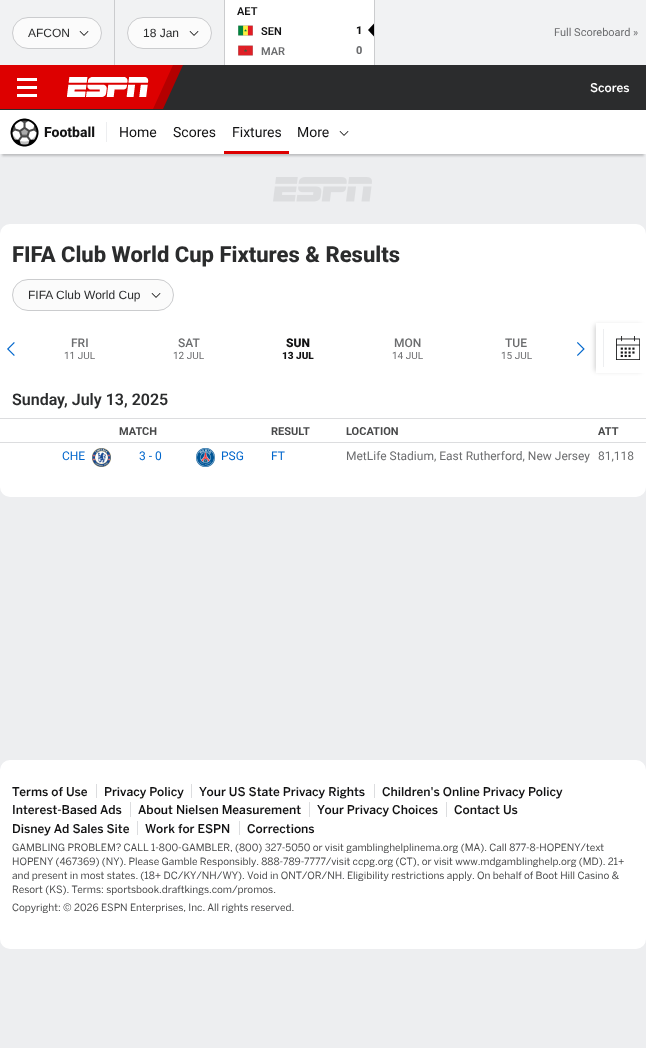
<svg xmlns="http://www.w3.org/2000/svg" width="646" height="1048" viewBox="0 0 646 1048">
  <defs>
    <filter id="blur1" x="-50%" y="-200%" width="200%" height="500%"><feGaussianBlur stdDeviation="1"/></filter>
    <clipPath id="clip1"><path d="M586 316H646V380H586ZM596 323H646V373H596Z" clip-rule="evenodd"/></clipPath>
    <filter id="blur2" x="-50%" y="-200%" width="200%" height="500%"><feGaussianBlur stdDeviation="2.5"/></filter>
  </defs>
  <rect width="100%" height="100%" fill="#edeef0"/>
  <rect x="0" y="0" width="646" height="65" fill="#f1f2f3"/>
  <rect x="114" y="0" width="1" height="65" fill="#cbccce"/>
  <rect x="12.5" y="17.5" width="89" height="31" rx="15.5" fill="#fbfbfb" stroke="#cbccce"/>
  <text x="28" y="37" font-family="Liberation Sans" font-size="12" fill="#2b2c2d">AFCON</text>
  <image x="79" y="31" width="10" height="5" href="img1.png"/>
  <rect x="224" y="0" width="1" height="65" fill="#cbccce"/>
  <rect x="127.5" y="17.5" width="84" height="31" rx="15.5" fill="#fbfbfb" stroke="#cbccce"/>
  <text x="143" y="37" font-family="Liberation Sans" font-size="12" fill="#2b2c2d">18 Jan</text>
  <image x="189" y="31" width="10" height="5" href="img1.png"/>
  <rect x="225" y="0" width="149" height="65" fill="#ffffff"/>
  <rect x="374" y="0" width="1" height="65" fill="#cbccce"/>
  <text x="237" y="15" font-family="Roboto" font-size="11" font-weight="600" fill="#121213">AET</text>
  <image x="238" y="25" width="15" height="11" href="img2.png"/>
  <text x="261" y="35" font-family="Roboto" font-size="11" font-weight="600" fill="#121213">SEN</text>
  <text x="356" y="34" font-family="Roboto" font-size="11" font-weight="800" fill="#121213">1</text>
  <path d="M368 30L374 36.5V23.5Z" fill="#000000"/>
  <image x="238" y="45" width="15" height="11" href="img3.png"/>
  <text x="261" y="55" font-family="Roboto" font-size="11" font-weight="600" fill="#6c6d6f">MAR</text>
  <text x="356" y="54" font-family="Roboto" font-size="11" font-weight="800" fill="#6c6d6f">0</text>
  <text x="554" y="36" font-family="Roboto" font-size="11" fill="#6c6d6f">Full Scoreboard »</text>
  <rect x="0" y="65" width="646" height="45" fill="#2b2c2d"/>
  <path d="M53 65H183L163 109H33Z" fill="#b40000"/>
  <path d="M-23 65H173L153 109H-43Z" fill="#dd0000"/>
  <image x="67" y="77" width="82" height="20" href="img4.png"/>
  <rect x="17" y="86" width="20" height="3" fill="#ffffff"/>
  <rect x="17" y="78" width="20" height="3" fill="#ffffff"/>
  <rect x="17" y="94" width="20" height="3" fill="#ffffff"/>
  <text x="590" y="92" font-family="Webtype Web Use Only" font-size="12" font-weight="500" fill="#ffffff">Scores</text>
  <rect x="2" y="116" width="642" height="40" fill="#000000" fill-opacity="0.2" filter="url(#blur1)"/>
  <rect x="0" y="110" width="646" height="44" fill="#ffffff"/>
  <image x="10" y="118" width="29" height="29" href="img5.png"/>
  <text x="44" y="137" font-family="Roboto" font-size="14" font-weight="800" fill="#121213">Football</text>
  <rect x="106" y="122" width="1" height="20" fill="#edeef0"/>
  <text x="119" y="137" font-family="Roboto" font-size="14" fill="#121213">Home</text>
  <text x="173" y="137" font-family="Roboto" font-size="14" fill="#121213">Scores</text>
  <rect x="224" y="151" width="65" height="3" fill="#dd0000"/>
  <text x="232" y="137" font-family="Roboto" font-size="14" fill="#121213">Fixtures</text>
  <text x="297" y="137" font-family="Roboto" font-size="14" fill="#121213">More</text>
  <image x="339" y="131" width="10" height="5" href="img6.png"/>
  <image x="273" y="177" width="99" height="25" href="img7.png"/>
  <rect x="0" y="224" width="646" height="273" rx="10" fill="#ffffff"/>
  <text x="12" y="262" font-family="Roboto" font-size="22" font-weight="800" fill="#2b2c2d">FIFA Club World Cup Fixtures &amp; Results</text>
  <rect x="12.5" y="279.5" width="161" height="31" rx="15.5" fill="#fbfbfb" stroke="#cbccce"/>
  <text x="28" y="299" font-family="Liberation Sans" font-size="12" fill="#2b2c2d">FIFA Club World Cup</text>
  <image x="151" y="293" width="10" height="5" href="img1.png"/>
  <image x="7" y="342" width="8" height="14" href="img8.png"/>
  <text x="71" y="347" font-family="Roboto" font-size="12" font-weight="500" fill="#6c6d6f">FRI</text>
  <text x="64" y="359" font-family="Roboto" font-size="10" fill="#6c6d6f">11 JUL</text>
  <text x="178" y="347" font-family="Roboto" font-size="12" font-weight="500" fill="#6c6d6f">SAT</text>
  <text x="173" y="359" font-family="Roboto" font-size="10" fill="#6c6d6f">12 JUL</text>
  <text x="286" y="347" font-family="Roboto" font-size="12" font-weight="900" fill="#121213">SUN</text>
  <text x="282" y="359" font-family="Roboto" font-size="10" font-weight="900" fill="#121213">13 JUL</text>
  <text x="394" y="347" font-family="Roboto" font-size="12" font-weight="500" fill="#6c6d6f">MON</text>
  <text x="392" y="359" font-family="Roboto" font-size="10" fill="#6c6d6f">14 JUL</text>
  <text x="505" y="347" font-family="Roboto" font-size="12" font-weight="500" fill="#6c6d6f">TUE</text>
  <text x="501" y="359" font-family="Roboto" font-size="10" fill="#6c6d6f">15 JUL</text>
  <image x="577" y="342" width="8" height="14" href="img9.png"/>
  <g clip-path="url(#clip1)">
    <rect x="595" y="325" width="46" height="46" fill="#000000" fill-opacity="0.2" filter="url(#blur2)"/>
  </g>
  <rect x="603" y="329" width="1" height="38" fill="#edeef0"/>
  <image x="616" y="336" width="24" height="24" href="img10.png"/>
  <text x="12" y="405" font-family="Roboto" font-size="16" font-weight="600" fill="#2b2c2d">Sunday, July 13, 2025</text>
  <text x="119" y="435" font-family="Roboto" font-size="11" font-weight="bold" fill="#48494a">MATCH</text>
  <text x="271" y="435" font-family="Roboto" font-size="11" font-weight="bold" fill="#48494a">RESULT</text>
  <text x="346" y="435" font-family="Roboto" font-size="11" font-weight="bold" fill="#48494a">LOCATION</text>
  <rect x="0" y="418" width="646" height="1" fill="#dcdddf"/>
  <rect x="0" y="442" width="646" height="1" fill="#dcdddf"/>
  <text x="598" y="435" font-family="Roboto" font-size="11" font-weight="bold" fill="#48494a">ATT</text>
  <text x="62" y="460" font-family="Roboto" font-size="12" fill="#0066cc">CHE</text>
  <image x="92" y="448" width="19" height="19" href="img11.png"/>
  <text x="139" y="460" font-family="Roboto" font-size="12" fill="#0066cc">3 - 0</text>
  <image x="196" y="448" width="19" height="19" href="img12.png"/>
  <text x="221" y="460" font-family="Roboto" font-size="12" fill="#0066cc">PSG</text>
  <text x="271" y="460" font-family="Roboto" font-size="12" fill="#0066cc">FT</text>
  <text x="346" y="460" font-family="Roboto" font-size="12" fill="#6c6d6f">MetLife Stadium, East Rutherford, New Jersey</text>
  <text x="598" y="460" font-family="Roboto" font-size="12" fill="#6c6d6f">81,118</text>
  <rect x="0" y="760" width="646" height="189" rx="10" fill="#ffffff"/>
  <text x="12" y="796" font-family="Webtype Web Use Only" font-size="12" font-weight="500" fill="#121213">Terms of Use</text>
  <rect x="96" y="784" width="1" height="14" fill="#dcdddf"/>
  <text x="104" y="796" font-family="Webtype Web Use Only" font-size="12" font-weight="500" fill="#121213">Privacy Policy</text>
  <rect x="191" y="784" width="1" height="14" fill="#dcdddf"/>
  <text x="199" y="796" font-family="Webtype Web Use Only" font-size="12" font-weight="500" fill="#121213">Your US State Privacy Rights</text>
  <rect x="374" y="784" width="1" height="14" fill="#dcdddf"/>
  <text x="382" y="796" font-family="Webtype Web Use Only" font-size="12" font-weight="500" fill="#121213">Children's Online Privacy Policy</text>
  <text x="12" y="814" font-family="Webtype Web Use Only" font-size="12" font-weight="500" fill="#121213">Interest-Based Ads</text>
  <rect x="130" y="802" width="1" height="15" fill="#dcdddf"/>
  <text x="138" y="814" font-family="Webtype Web Use Only" font-size="12" font-weight="500" fill="#121213">About Nielsen Measurement</text>
  <rect x="309" y="802" width="1" height="15" fill="#dcdddf"/>
  <text x="317" y="814" font-family="Webtype Web Use Only" font-size="12" font-weight="500" fill="#121213">Your Privacy Choices</text>
  <rect x="446" y="802" width="1" height="15" fill="#dcdddf"/>
  <text x="454" y="814" font-family="Webtype Web Use Only" font-size="12" font-weight="500" fill="#121213">Contact Us</text>
  <text x="12" y="833" font-family="Webtype Web Use Only" font-size="12" font-weight="500" fill="#121213">Disney Ad Sales Site</text>
  <rect x="137" y="821" width="1" height="14" fill="#dcdddf"/>
  <text x="145" y="833" font-family="Webtype Web Use Only" font-size="12" font-weight="500" fill="#121213">Work for ESPN</text>
  <rect x="239" y="821" width="1" height="14" fill="#dcdddf"/>
  <text x="247" y="833" font-family="Webtype Web Use Only" font-size="12" font-weight="500" fill="#121213">Corrections</text>
  <text x="12" y="851" font-family="Webtype Web Use Only" font-size="10" fill="#48494a">GAMBLING PROBLEM? CALL 1-800-GAMBLER, (800) 327-5050 or visit gamblinghelplinema.org (MA). Call 877-8-HOPENY/text</text>
  <text x="12" y="865" font-family="Webtype Web Use Only" font-size="10" fill="#48494a">HOPENY (467369) (NY). Please Gamble Responsibly. 888-789-7777/visit ccpg.org (CT), or visit www.mdgamblinghelp.org (MD). 21+</text>
  <text x="12" y="879" font-family="Webtype Web Use Only" font-size="10" fill="#48494a">and present in most states. (18+ DC/KY/NH/WY). Void in ONT/OR/NH. Eligibility restrictions apply. On behalf of Boot Hill Casino &amp;</text>
  <text x="12" y="893" font-family="Webtype Web Use Only" font-size="10" fill="#48494a">Resort (KS). Terms: sportsbook.draftkings.com/promos.</text>
  <text x="12" y="911" font-family="Webtype Web Use Only" font-size="10" fill="#48494a">Copyright: © 2026 ESPN Enterprises, Inc. All rights reserved.</text>
</svg>
